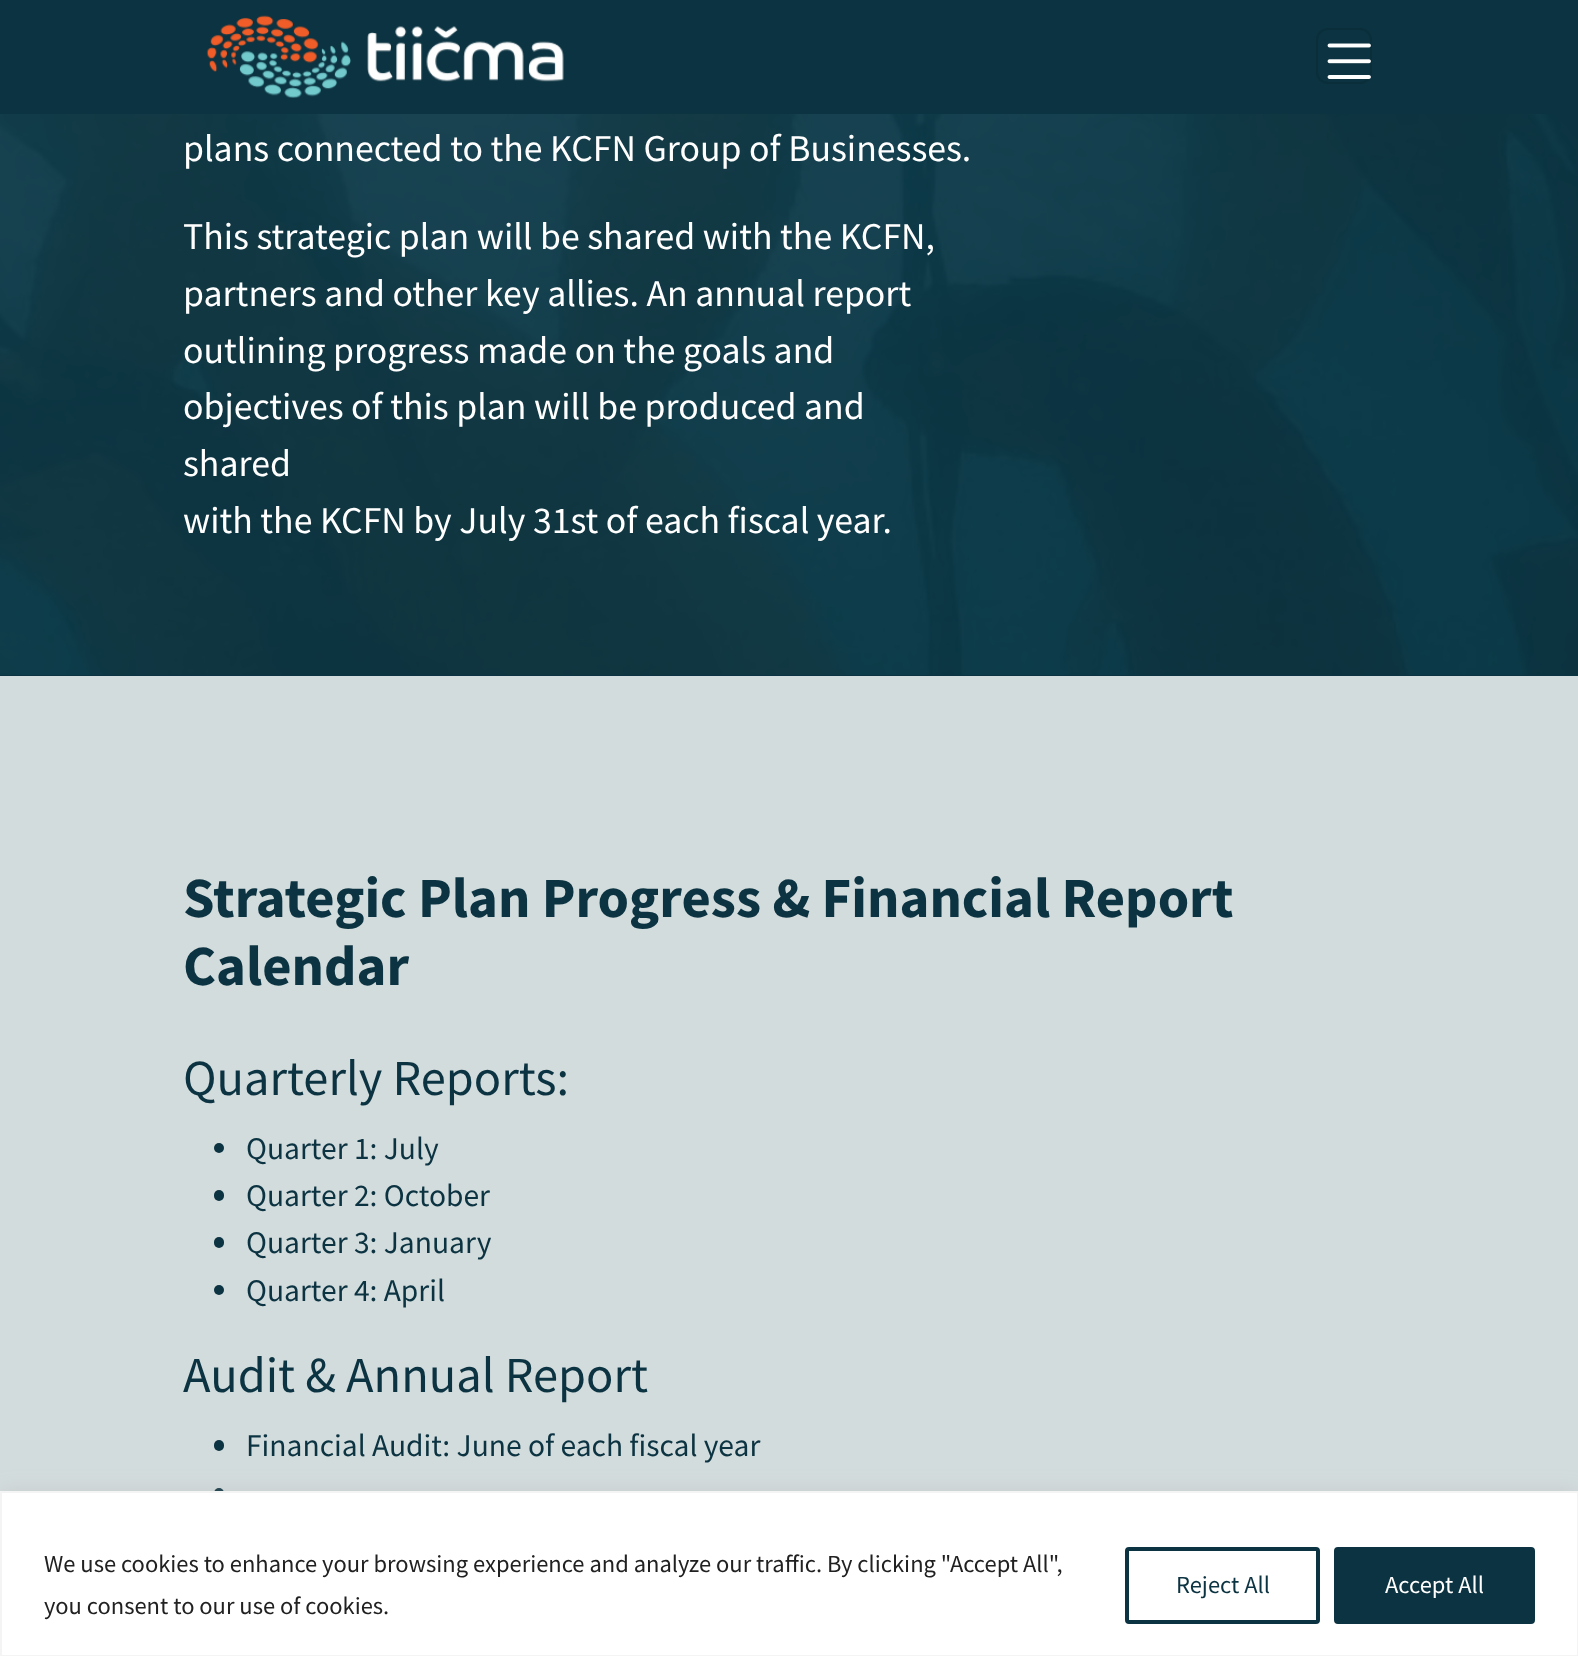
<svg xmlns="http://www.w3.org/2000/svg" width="1578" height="1656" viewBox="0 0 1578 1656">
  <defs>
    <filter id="blur1" x="-50%" y="-200%" width="200%" height="500%"><feGaussianBlur stdDeviation="9"/></filter>
  </defs>
  <rect width="100%" height="100%" fill="#d3dcdd"/>
  <rect x="0" y="0" width="1578" height="676" fill="#0c3341"/>
  <image x="206" y="15" width="358" height="83" href="img1.png"/>
  <rect x="1317" y="29" width="54" height="54" rx="11" fill="none" stroke="#0b2e3b" stroke-width="2"/>
  <image x="1327" y="43" width="44" height="36" href="img2.png"/>
  <image x="0" y="114" width="1578" height="561" href="img3.png"/>
  <text x="183" y="161" font-family="Source Sans Pro" font-size="37.8" fill="#ffffff">plans connected to the KCFN Group of Businesses.</text>
  <text x="183" y="249" font-family="Source Sans Pro" font-size="37.8" fill="#ffffff">This strategic plan will be shared with the KCFN,</text>
  <text x="183" y="306" font-family="Source Sans Pro" font-size="37.8" fill="#ffffff">partners and other key allies. An annual report</text>
  <text x="183" y="363" font-family="Source Sans Pro" font-size="37.8" fill="#ffffff">outlining progress made on the goals and</text>
  <text x="183" y="419" font-family="Source Sans Pro" font-size="37.8" fill="#ffffff">objectives of this plan will be produced and</text>
  <text x="183" y="476" font-family="Source Sans Pro" font-size="37.8" fill="#ffffff">shared</text>
  <text x="183" y="533" font-family="Source Sans Pro" font-size="37.8" fill="#ffffff">with the KCFN by July 31st of each fiscal year.</text>
  <text x="183" y="917" font-family="Source Sans Pro" font-size="56.75" font-weight="bold" fill="#0c3341">Strategic Plan Progress &amp; Financial Report</text>
  <text x="183" y="985" font-family="Source Sans Pro" font-size="56.75" font-weight="bold" fill="#0c3341">Calendar</text>
  <text x="183" y="1095" font-family="Source Sans Pro" font-size="50.5" fill="#0c3341">Quarterly Reports:</text>
  <circle cx="219" cy="1148" r="5" fill="#0c3341"/>
  <text x="246" y="1159" font-family="Source Sans Pro" font-size="31.5" fill="#0c3341">Quarter 1: July</text>
  <rect x="214" y="1190" width="10" height="11" rx="5" fill="#0c3341"/>
  <text x="246" y="1206" font-family="Source Sans Pro" font-size="31.5" fill="#0c3341">Quarter 2: October</text>
  <rect x="214" y="1237" width="10" height="11" rx="5" fill="#0c3341"/>
  <text x="246" y="1253" font-family="Source Sans Pro" font-size="31.5" fill="#0c3341">Quarter 3: January</text>
  <circle cx="219" cy="1290" r="5" fill="#0c3341"/>
  <text x="246" y="1301" font-family="Source Sans Pro" font-size="31.5" fill="#0c3341">Quarter 4: April</text>
  <text x="183" y="1392" font-family="Source Sans Pro" font-size="50.5" fill="#0c3341">Audit &amp; Annual Report</text>
  <rect x="214" y="1440" width="10" height="11" rx="5" fill="#0c3341"/>
  <text x="246" y="1456" font-family="Source Sans Pro" font-size="31.5" fill="#0c3341">Financial Audit: June of each fiscal year</text>
  <circle cx="219" cy="1493" r="5" fill="#0c3341"/>
  <rect x="0" y="1489" width="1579" height="167" fill="#acabab" fill-opacity="0.3" filter="url(#blur1)"/>
  <rect x="1" y="1492" width="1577" height="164" fill="#ffffff" stroke="#f4f4f4" stroke-width="2"/>
  <text x="44" y="1572" font-family="Source Sans Pro" font-size="24.5" fill="#212121">We use cookies to enhance your browsing experience and analyze our traffic. By clicking "Accept All",</text>
  <text x="44" y="1614" font-family="Source Sans Pro" font-size="24.5" fill="#212121">you consent to our use of cookies.</text>
  <rect x="1127" y="1549" width="191" height="73" rx="2" fill="none" stroke="#0c3341" stroke-width="4"/>
  <text x="1176" y="1593" font-family="Source Sans Pro" font-size="24.5" fill="#0c3341">Reject All</text>
  <rect x="1336" y="1549" width="197" height="73" rx="2" fill="#0c3341" stroke="#0c3341" stroke-width="4"/>
  <text x="1385" y="1593" font-family="Source Sans Pro" font-size="24.5" fill="#ffffff">Accept All</text>
</svg>
